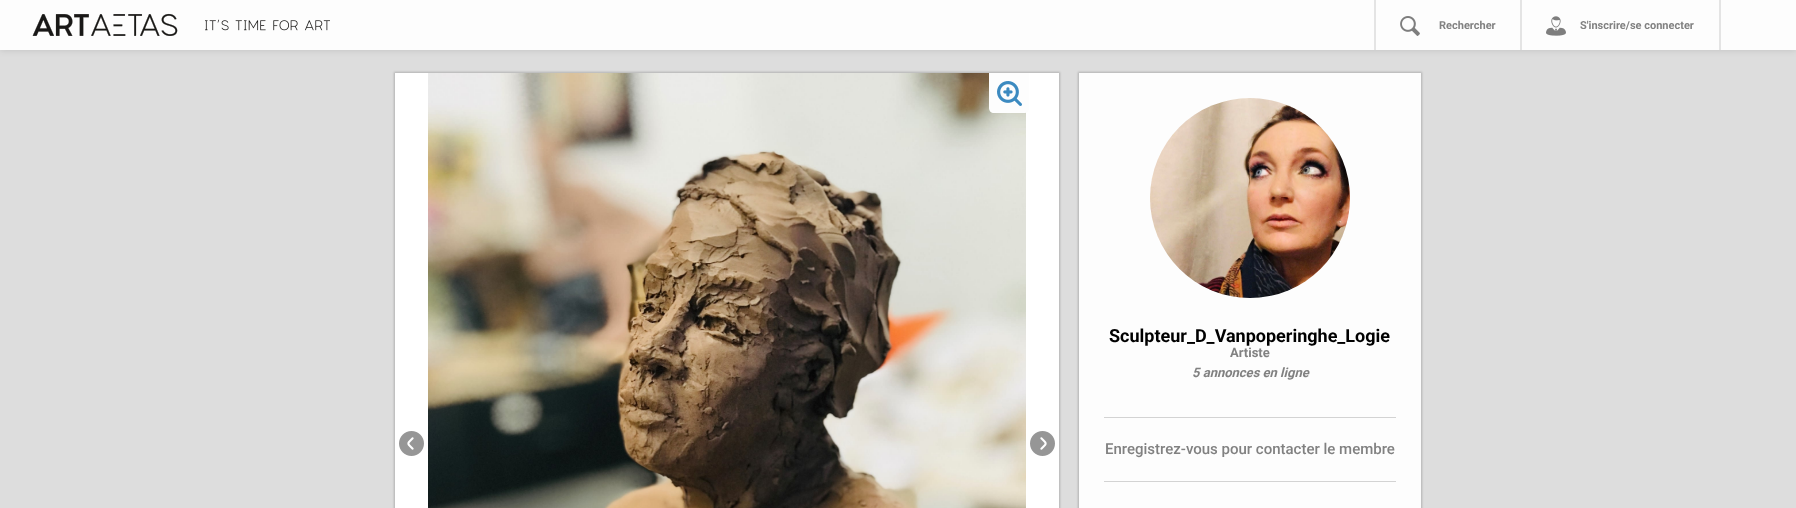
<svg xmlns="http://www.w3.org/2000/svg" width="1796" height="508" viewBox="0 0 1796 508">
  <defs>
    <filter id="blur1" x="-50%" y="-200%" width="200%" height="500%"><feGaussianBlur stdDeviation="3"/></filter>
    <filter id="blur2" x="-50%" y="-200%" width="200%" height="500%"><feGaussianBlur stdDeviation="1"/></filter>
  </defs>
  <rect width="100%" height="100%" fill="#dddddd"/>
  <rect x="0" y="1" width="1796" height="50" fill="#000000" fill-opacity="0.1" filter="url(#blur1)"/>
  <rect x="0" y="0" width="1796" height="50" fill="#fdfdfd"/>
  <image x="32" y="13" width="146" height="23" href="img1.png"/>
  <image x="205" y="19" width="125" height="12" href="img2.png"/>
  <rect x="1374" y="0" width="2" height="50" fill="#e4e4e4"/>
  <rect x="1520" y="0" width="2" height="50" fill="#e4e4e4"/>
  <image x="1400" y="16" width="20" height="20" href="img3.png"/>
  <text x="1439" y="29" font-family="Roboto" font-size="11" font-weight="bold" fill="#818181">Rechercher</text>
  <rect x="1719" y="0" width="2" height="50" fill="#e4e4e4"/>
  <image x="1546" y="16" width="20" height="20" href="img4.png"/>
  <text x="1580" y="29" font-family="Roboto" font-size="11" font-weight="bold" fill="#818181">S'inscrire/se connecter</text>
  <rect x="394" y="72" width="666" height="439" fill="#000000" fill-opacity="0.2" filter="url(#blur2)"/>
  <rect x="395" y="73" width="664" height="435" fill="#ffffff"/>
  <image x="399" y="431" width="25" height="25" href="img5.png"/>
  <image x="428" y="73" width="598" height="435" href="img6.png"/>
  <image x="1030" y="431" width="25" height="25" href="img7.png"/>
  <path d="M989 73H1029V108C1029 111 1027 113 1024 113H994C991 113 989 111 989 108Z" fill="#fdfdfd"/>
  <image x="997" y="81" width="25" height="25" href="img8.png"/>
  <rect x="1078" y="72" width="344" height="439" fill="#000000" fill-opacity="0.2" filter="url(#blur2)"/>
  <rect x="1079" y="73" width="342" height="435" fill="#fdfdfd"/>
  <rect x="1104" y="481" width="292" height="1" fill="#d3d3d3"/>
  <image x="1150" y="98" width="200" height="200" href="img9.png"/>
  <text x="1109" y="342" font-family="Roboto" font-size="18" font-weight="bold" fill="#000000">Sculpteur_D_Vanpoperinghe_Logie</text>
  <text x="1230" y="357" font-family="Roboto" font-size="13" font-weight="bold" fill="#818181">Artiste</text>
  <text x="1192" y="377" font-family="Roboto" font-size="13" font-weight="bold" font-style="italic" fill="#818181">5 annonces en ligne</text>
  <rect x="1104" y="417" width="292" height="1" fill="#d3d3d3"/>
  <text x="1105" y="454" font-family="Roboto" font-size="15" font-weight="500" fill="#818181">Enregistrez-vous pour contacter le membre</text>
</svg>
